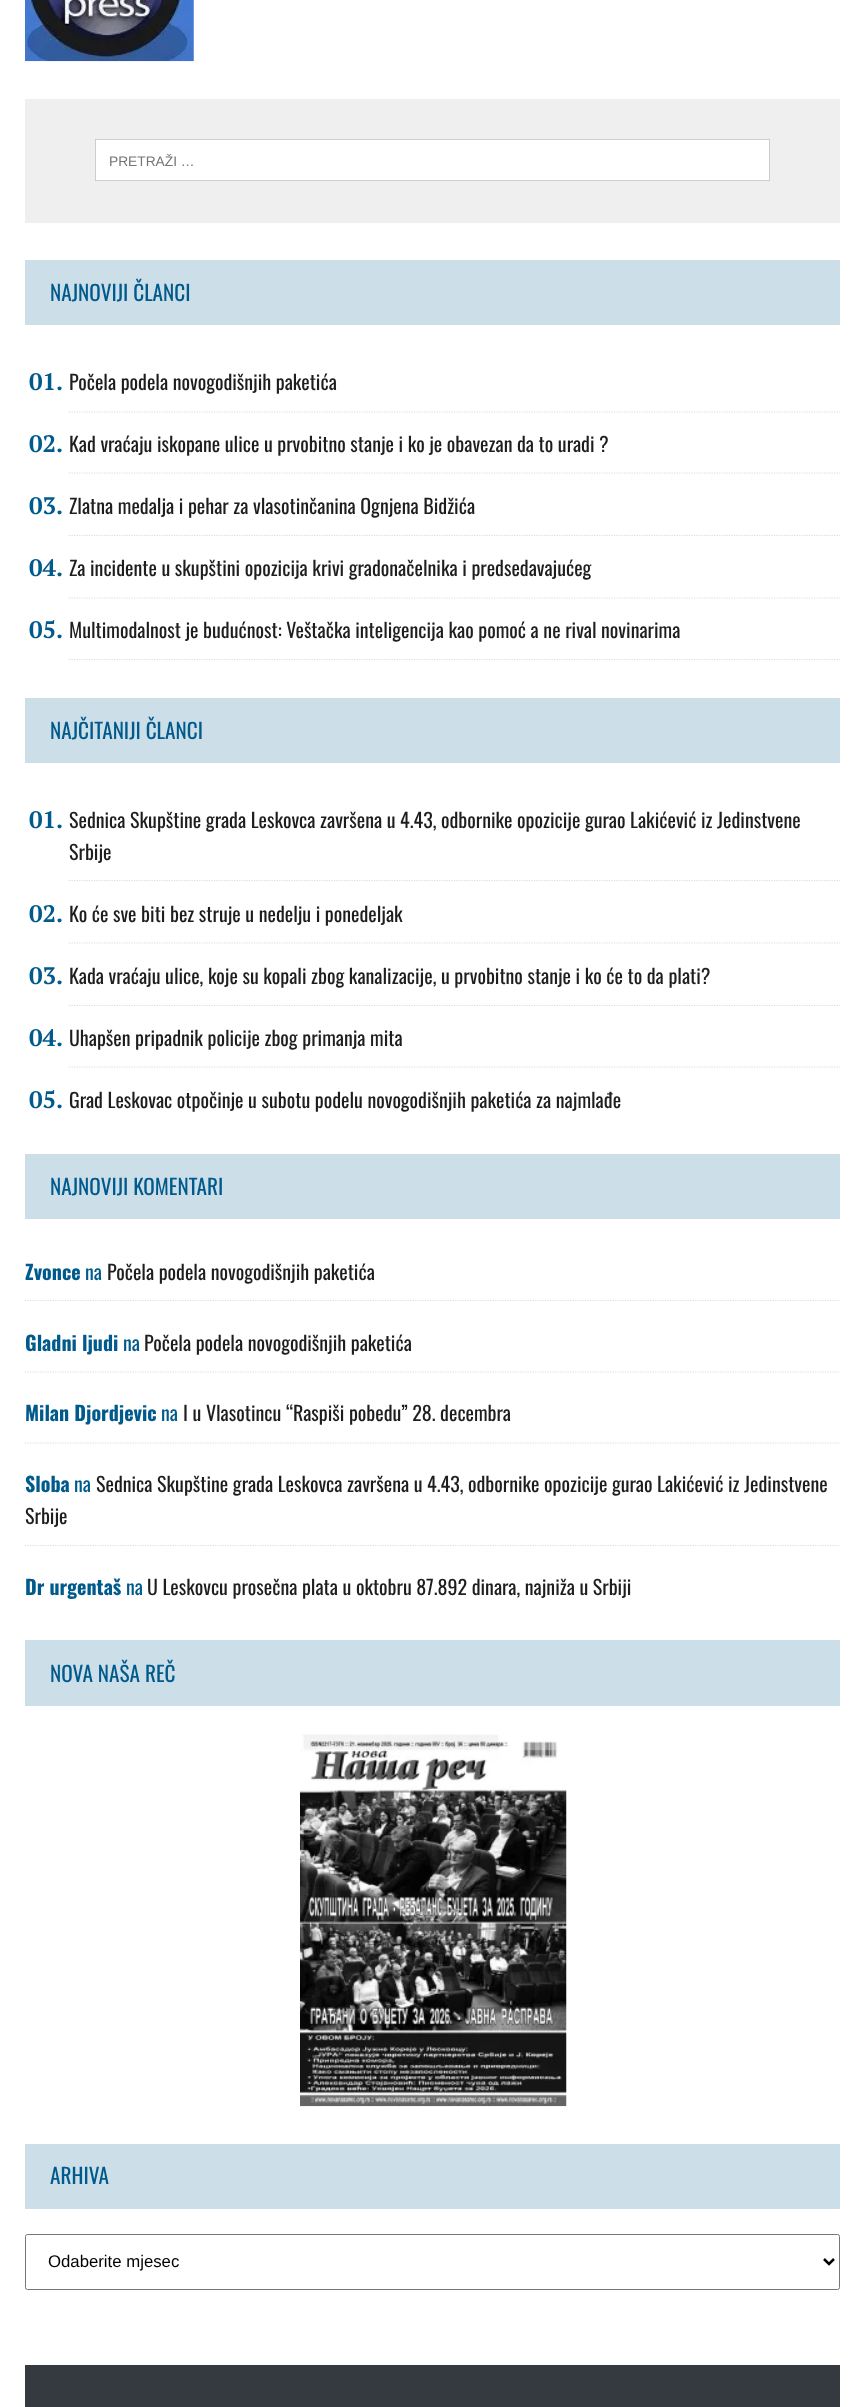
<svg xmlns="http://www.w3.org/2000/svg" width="864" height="2407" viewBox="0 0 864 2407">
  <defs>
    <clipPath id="clip1"><rect x="25" y="260" width="815" height="400"/></clipPath>
  </defs>
  <rect width="100%" height="100%" fill="#ffffff"/>
  <image x="25" y="0" width="169" height="62" href="img1.png"/>
  <rect x="25" y="99" width="815" height="124" fill="#efefef"/>
  <rect x="95.5" y="139.5" width="674" height="41" fill="#ffffff" stroke="#cdcdcd"/>
  <text x="109" y="166" font-family="Liberation Sans" font-size="13.75" fill="#757575">PRETRAŽI …</text>
  <rect x="25" y="260" width="815" height="65" fill="#ccdee8"/>
  <text x="50" y="301" font-family="Oswald" font-size="21.25" fill="#005a8c">NAJNOVIJI ČLANCI</text>
  <path d="M69 412H840" fill="none" stroke="#dcdcdc" stroke-width="1.2" stroke-dasharray="1.25 1.25"/>
  <text x="29" y="390" font-family="PT Serif" font-size="24" font-weight="bold" fill="#005a8c">01.</text>
  <text x="69" y="390" font-family="Oswald" font-size="20" fill="#1f1e1e">Počela podela novogodišnjih paketića</text>
  <path d="M69 473H840" fill="none" stroke="#dcdcdc" stroke-width="1.2" stroke-dasharray="1.25 1.25"/>
  <text x="29" y="452" font-family="PT Serif" font-size="24" font-weight="bold" fill="#005a8c">02.</text>
  <text x="69" y="452" font-family="Oswald" font-size="20" fill="#1f1e1e">Kad vraćaju iskopane ulice u prvobitno stanje i ko je obavezan da to uradi ?</text>
  <path d="M69 535.5H840" fill="none" stroke="#dcdcdc" stroke-width="1.2" stroke-dasharray="1.25 1.25"/>
  <text x="29" y="514" font-family="PT Serif" font-size="24" font-weight="bold" fill="#005a8c">03.</text>
  <text x="69" y="514" font-family="Oswald" font-size="20" fill="#1f1e1e">Zlatna medalja i pehar za vlasotinčanina Ognjena Bidžića</text>
  <path d="M69 598H840" fill="none" stroke="#dcdcdc" stroke-width="1.2" stroke-dasharray="1.25 1.25"/>
  <text x="29" y="576" font-family="PT Serif" font-size="24" font-weight="bold" fill="#005a8c">04.</text>
  <text x="69" y="576" font-family="Oswald" font-size="20" fill="#1f1e1e">Za incidente u skupštini opozicija krivi gradonačelnika i predsedavajućeg</text>
  <g clip-path="url(#clip1)">
    <path d="M69 659.5H840" fill="none" stroke="#dcdcdc" stroke-width="1.2" stroke-dasharray="1.25 1.25"/>
  </g>
  <text x="29" y="638" font-family="PT Serif" font-size="24" font-weight="bold" fill="#005a8c">05.</text>
  <text x="69" y="638" font-family="Oswald" font-size="20" fill="#1f1e1e">Multimodalnost je budućnost: Veštačka inteligencija kao pomoć a ne rival novinarima</text>
  <rect x="25" y="698" width="815" height="65" fill="#ccdee8"/>
  <text x="50" y="739" font-family="Oswald" font-size="21.25" fill="#005a8c">NAJČITANIJI ČLANCI</text>
  <path d="M69 880.5H840" fill="none" stroke="#dcdcdc" stroke-width="1.2" stroke-dasharray="1.25 1.25"/>
  <text x="29" y="828" font-family="PT Serif" font-size="24" font-weight="bold" fill="#005a8c">01.</text>
  <text x="69" y="828" font-family="Oswald" font-size="20" fill="#1f1e1e">Sednica Skupštine grada Leskovca završena u 4.43, odbornike opozicije gurao Lakićević iz Jedinstvene</text>
  <text x="69" y="860" font-family="Oswald" font-size="20" fill="#1f1e1e">Srbije</text>
  <path d="M69 943H840" fill="none" stroke="#dcdcdc" stroke-width="1.2" stroke-dasharray="1.25 1.25"/>
  <text x="29" y="922" font-family="PT Serif" font-size="24" font-weight="bold" fill="#005a8c">02.</text>
  <text x="69" y="922" font-family="Oswald" font-size="20" fill="#1f1e1e">Ko će sve biti bez struje u nedelju i ponedeljak</text>
  <path d="M69 1005.5H840" fill="none" stroke="#dcdcdc" stroke-width="1.2" stroke-dasharray="1.25 1.25"/>
  <text x="29" y="984" font-family="PT Serif" font-size="24" font-weight="bold" fill="#005a8c">03.</text>
  <text x="69" y="984" font-family="Oswald" font-size="20" fill="#1f1e1e">Kada vraćaju ulice, koje su kopali zbog kanalizacije, u prvobitno stanje i ko će to da plati?</text>
  <path d="M69 1067H840" fill="none" stroke="#dcdcdc" stroke-width="1.2" stroke-dasharray="1.25 1.25"/>
  <text x="29" y="1046" font-family="PT Serif" font-size="24" font-weight="bold" fill="#005a8c">04.</text>
  <text x="69" y="1046" font-family="Oswald" font-size="20" fill="#1f1e1e">Uhapšen pripadnik policije zbog primanja mita</text>
  <text x="29" y="1108" font-family="PT Serif" font-size="24" font-weight="bold" fill="#005a8c">05.</text>
  <text x="69" y="1108" font-family="Oswald" font-size="20" fill="#1f1e1e">Grad Leskovac otpočinje u subotu podelu novogodišnjih paketića za najmlađe</text>
  <rect x="25" y="1154" width="815" height="65" fill="#ccdee8"/>
  <text x="50" y="1195" font-family="Oswald" font-size="21.25" fill="#005a8c">NAJNOVIJI KOMENTARI</text>
  <path d="M25 1300.5H840" fill="none" stroke="#dcdcdc" stroke-width="1.2" stroke-dasharray="1.25 1.25"/>
  <text x="25" y="1280" font-family="Oswald" font-size="20" font-weight="bold" fill="#005a8c">Zvonce</text>
  <text x="85" y="1280" font-family="Oswald" font-size="20" fill="#005a8c">na</text>
  <text x="107" y="1280" font-family="Oswald" font-size="20" fill="#1f1e1e">Počela podela novogodišnjih paketića</text>
  <path d="M25 1372H840" fill="none" stroke="#dcdcdc" stroke-width="1.2" stroke-dasharray="1.25 1.25"/>
  <text x="25" y="1351" font-family="Oswald" font-size="20" font-weight="bold" fill="#005a8c">Gladni ljudi</text>
  <text x="123" y="1351" font-family="Oswald" font-size="20" fill="#005a8c">na</text>
  <text x="144" y="1351" font-family="Oswald" font-size="20" fill="#1f1e1e">Počela podela novogodišnjih paketića</text>
  <path d="M25 1443H840" fill="none" stroke="#dcdcdc" stroke-width="1.2" stroke-dasharray="1.25 1.25"/>
  <text x="25" y="1421" font-family="Oswald" font-size="20" font-weight="bold" fill="#005a8c">Milan Djordjevic</text>
  <text x="161" y="1421" font-family="Oswald" font-size="20" fill="#005a8c">na</text>
  <text x="183" y="1421" font-family="Oswald" font-size="20" fill="#1f1e1e">I u Vlasotincu “Raspiši pobedu” 28. decembra</text>
  <path d="M25 1545.5H840" fill="none" stroke="#dcdcdc" stroke-width="1.2" stroke-dasharray="1.25 1.25"/>
  <text x="25" y="1492" font-family="Oswald" font-size="20" font-weight="bold" fill="#005a8c">Sloba</text>
  <text x="74" y="1492" font-family="Oswald" font-size="20" fill="#005a8c">na</text>
  <text x="96" y="1492" font-family="Oswald" font-size="20" fill="#1f1e1e">Sednica Skupštine grada Leskovca završena u 4.43, odbornike opozicije gurao Lakićević iz Jedinstvene</text>
  <text x="25" y="1524" font-family="Oswald" font-size="20" fill="#1f1e1e">Srbije</text>
  <text x="25" y="1595" font-family="Oswald" font-size="20" font-weight="bold" fill="#005a8c">Dr urgentaš</text>
  <text x="126" y="1595" font-family="Oswald" font-size="20" fill="#005a8c">na</text>
  <text x="147" y="1595" font-family="Oswald" font-size="20" fill="#1f1e1e">U Leskovcu prosečna plata u oktobru 87.892 dinara, najniža u Srbiji</text>
  <rect x="25" y="1640" width="815" height="66" fill="#ccdee8"/>
  <text x="50" y="1682" font-family="Oswald" font-size="21.25" fill="#005a8c">NOVA NAŠA REČ</text>
  <image x="300" y="1734" width="267" height="373" href="img2.png"/>
  <rect x="25" y="2144" width="815" height="65" fill="#ccdee8"/>
  <text x="50" y="2184" font-family="Oswald" font-size="21.25" fill="#005a8c">ARHIVA</text>
  <rect x="25.5" y="2234.5" width="814" height="55" rx="2" fill="none" stroke="#767676"/>
  <path d="M824 2259L829 2264L834 2259" fill="none" stroke="#000000" stroke-width="2.5"/>
  <text x="48" y="2267" font-family="Liberation Sans" font-size="16.75" fill="#000000">Odaberite mjesec</text>
  <rect x="25" y="2365" width="815" height="42" fill="#343a40"/>
</svg>
